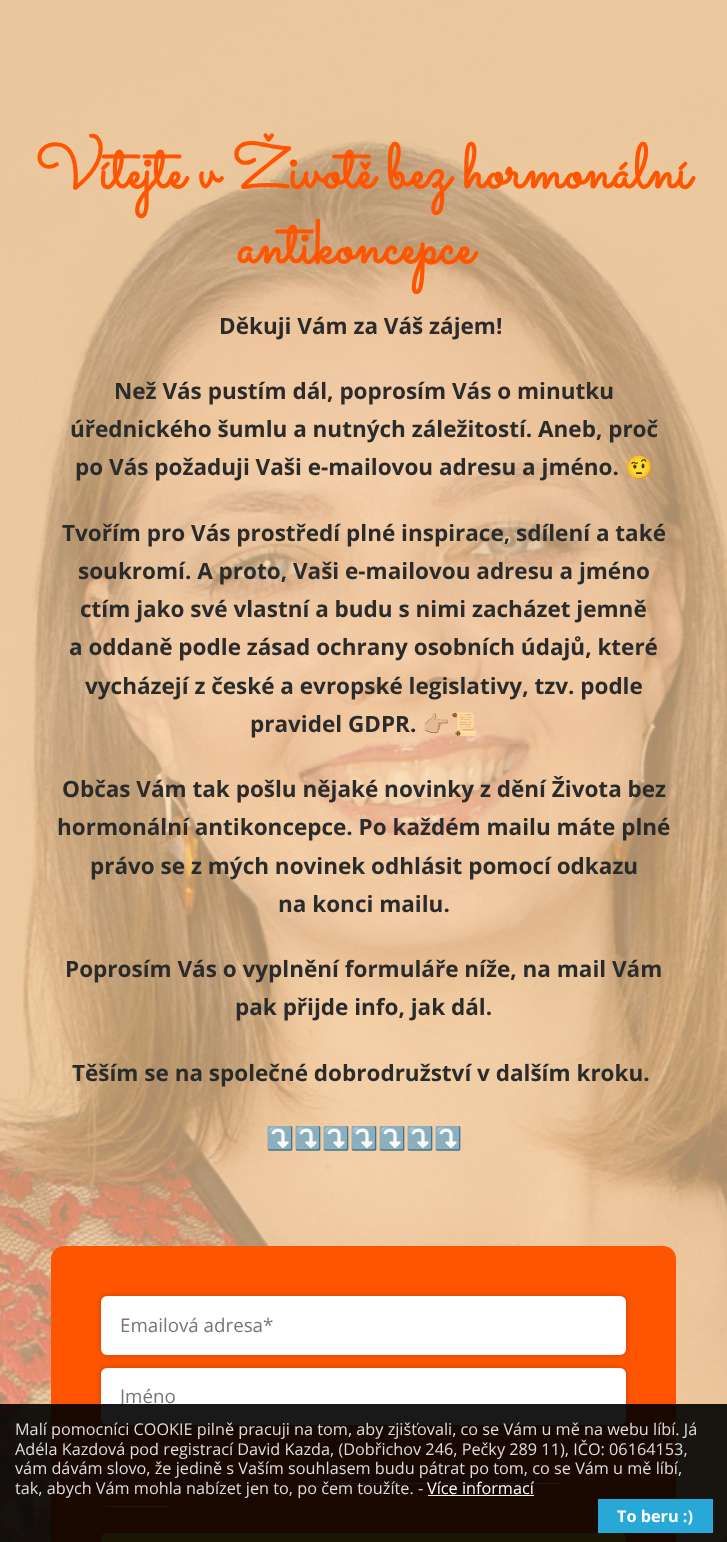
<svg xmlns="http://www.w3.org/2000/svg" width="727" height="1542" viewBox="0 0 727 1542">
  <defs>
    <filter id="blur1" x="-50%" y="-200%" width="200%" height="500%"><feGaussianBlur stdDeviation="3"/></filter>
    <clipPath id="clip1"><rect x="120" y="1383" width="488" height="25"/></clipPath>
    <linearGradient id="g1" gradientUnits="userSpaceOnUse" x1="364" y1="1533" x2="364" y2="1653"><stop offset="0" stop-color="#ffde21"/><stop offset="1" stop-color="#ffcc00"/></linearGradient>
  </defs>
  <rect width="100%" height="100%" fill="#ffffff"/>
  <image x="0" y="0" width="727" height="1542" href="img1.png"/>
  <text x="35" y="188" font-family="Sacramento" font-size="62.5" font-weight="bold" fill="#ff5500">Vítejte v Životě bez hormonální</text>
  <text x="237" y="263" font-family="Sacramento" font-size="62.5" font-weight="bold" fill="#ff5500">antikoncepce</text>
  <text x="219" y="334" font-family="Open Sans" font-size="22.5" font-weight="bold" fill="#2b2b2b">Děkuji Vám za Váš zájem!</text>
  <text x="114" y="399" font-family="Open Sans" font-size="22.5" font-weight="bold" fill="#2b2b2b">Než Vás pustím dál, poprosím Vás o minutku</text>
  <text x="70" y="437" font-family="Open Sans" font-size="22.5" font-weight="bold" fill="#2b2b2b">úřednického šumlu a nutných záležitostí. Aneb, proč</text>
  <text x="75" y="475" font-family="Open Sans" font-size="22.5" font-weight="bold" fill="#2b2b2b">po Vás požaduji Vaši e-mailovou adresu a jméno.</text>
  <text x="625" y="475" font-family="Noto Color Emoji" font-size="22.5" font-weight="bold" fill="#2b2b2b">🤨</text>
  <text x="62" y="541" font-family="Open Sans" font-size="22.5" font-weight="bold" fill="#2b2b2b">Tvořím pro Vás prostředí plné inspirace, sdílení a také</text>
  <text x="78" y="579" font-family="Open Sans" font-size="22.5" font-weight="bold" fill="#2b2b2b">soukromí. A proto, Vaši e-mailovou adresu a jméno</text>
  <text x="80" y="617" font-family="Open Sans" font-size="22.5" font-weight="bold" fill="#2b2b2b">ctím jako své vlastní a budu s nimi zacházet jemně</text>
  <text x="69" y="655" font-family="Open Sans" font-size="22.5" font-weight="bold" fill="#2b2b2b">a oddaně podle zásad ochrany osobních údajů, které</text>
  <text x="85" y="694" font-family="Open Sans" font-size="22.5" font-weight="bold" fill="#2b2b2b">vycházejí z české a evropské legislativy, tzv. podle</text>
  <text x="250" y="732" font-family="Open Sans" font-size="22.5" font-weight="bold" fill="#2b2b2b">pravidel GDPR.</text>
  <text x="422" y="732" font-family="Noto Color Emoji" font-size="22.5" font-weight="bold" fill="#2b2b2b">👉🏼📜</text>
  <text x="62" y="797" font-family="Open Sans" font-size="22.5" font-weight="bold" fill="#2b2b2b">Občas Vám tak pošlu nějaké novinky z dění Života bez</text>
  <text x="57" y="835" font-family="Open Sans" font-size="22.5" font-weight="bold" fill="#2b2b2b">hormonální antikoncepce. Po každém mailu máte plné</text>
  <text x="90" y="874" font-family="Open Sans" font-size="22.5" font-weight="bold" fill="#2b2b2b">právo se z mých novinek odhlásit pomocí odkazu</text>
  <text x="278" y="912" font-family="Open Sans" font-size="22.5" font-weight="bold" fill="#2b2b2b">na konci mailu.</text>
  <text x="65" y="977" font-family="Open Sans" font-size="22.5" font-weight="bold" fill="#2b2b2b">Poprosím Vás o vyplnění formuláře níže, na mail Vám</text>
  <text x="235" y="1015" font-family="Open Sans" font-size="22.5" font-weight="bold" fill="#2b2b2b">pak přijde info, jak dál.</text>
  <text x="72" y="1081" font-family="Open Sans" font-size="22.5" font-weight="bold" fill="#2b2b2b">Těším se na společné dobrodružství v dalším kroku.</text>
  <text x="266" y="1146" font-family="Noto Color Emoji" font-size="22.5" fill="#2b2b2b">⤵️⤵️⤵️⤵️⤵️⤵️⤵️</text>
  <rect x="51" y="1246" width="625" height="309" rx="13" fill="#ff5500"/>
  <rect x="101" y="1296" width="525" height="59" rx="6" fill="#000000" fill-opacity="0.2" filter="url(#blur1)"/>
  <rect x="101" y="1296" width="525" height="59" rx="6" fill="#ffffff"/>
  <text x="120" y="1332" font-family="Open Sans" font-size="18.75" fill="#757575">Emailová adresa*</text>
  <rect x="101" y="1368" width="525" height="57" rx="6" fill="#000000" fill-opacity="0.2" filter="url(#blur1)"/>
  <rect x="101" y="1368" width="525" height="57" rx="6" fill="#ffffff"/>
  <g clip-path="url(#clip1)">
    <text x="120" y="1403" font-family="Open Sans" font-size="18.75" fill="#757575">Jméno</text>
  </g>
  <rect x="336" y="1483" width="225" height="1" fill="#ffffff"/>
  <rect x="105" y="1506" width="63" height="1" fill="#ffffff"/>
  <rect x="101" y="1533" width="525" height="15" rx="6" fill="url(#g1)"/>
  <rect x="0" y="1404" width="727" height="138" fill="#000000" fill-opacity="0.9"/>
  <text x="15" y="1435" font-family="Open Sans" font-size="16.25" fill="#dddddd">Malí pomocníci COOKIE pilně pracuji na tom, aby zjišťovali, co se Vám u mě na webu líbí. Já</text>
  <text x="15" y="1455" font-family="Open Sans" font-size="16.25" fill="#dddddd">Adéla Kazdová pod registrací David Kazda, (Dobřichov 246, Pečky 289 11), IČO: 06164153,</text>
  <text x="15" y="1474" font-family="Open Sans" font-size="16.25" fill="#dddddd">vám dávám slovo, že jedině s Vaším souhlasem budu pátrat po tom, co se Vám u mě líbí,</text>
  <text x="15" y="1494" font-family="Open Sans" font-size="16.25" fill="#dddddd">tak, abych Vám mohla nabízet jen to, po čem toužíte. -</text>
  <text x="427" y="1494" font-family="Open Sans" font-size="16.25" fill="#ffffff">Více informací</text>
  <rect x="428" y="1495" width="106" height="1" fill="#ffffff"/>
  <rect x="598" y="1499" width="115" height="34" fill="#27a8d7"/>
  <text x="617" y="1522" font-family="Open Sans" font-size="16.25" font-weight="bold" fill="#ffffff">To beru :)</text>
</svg>
